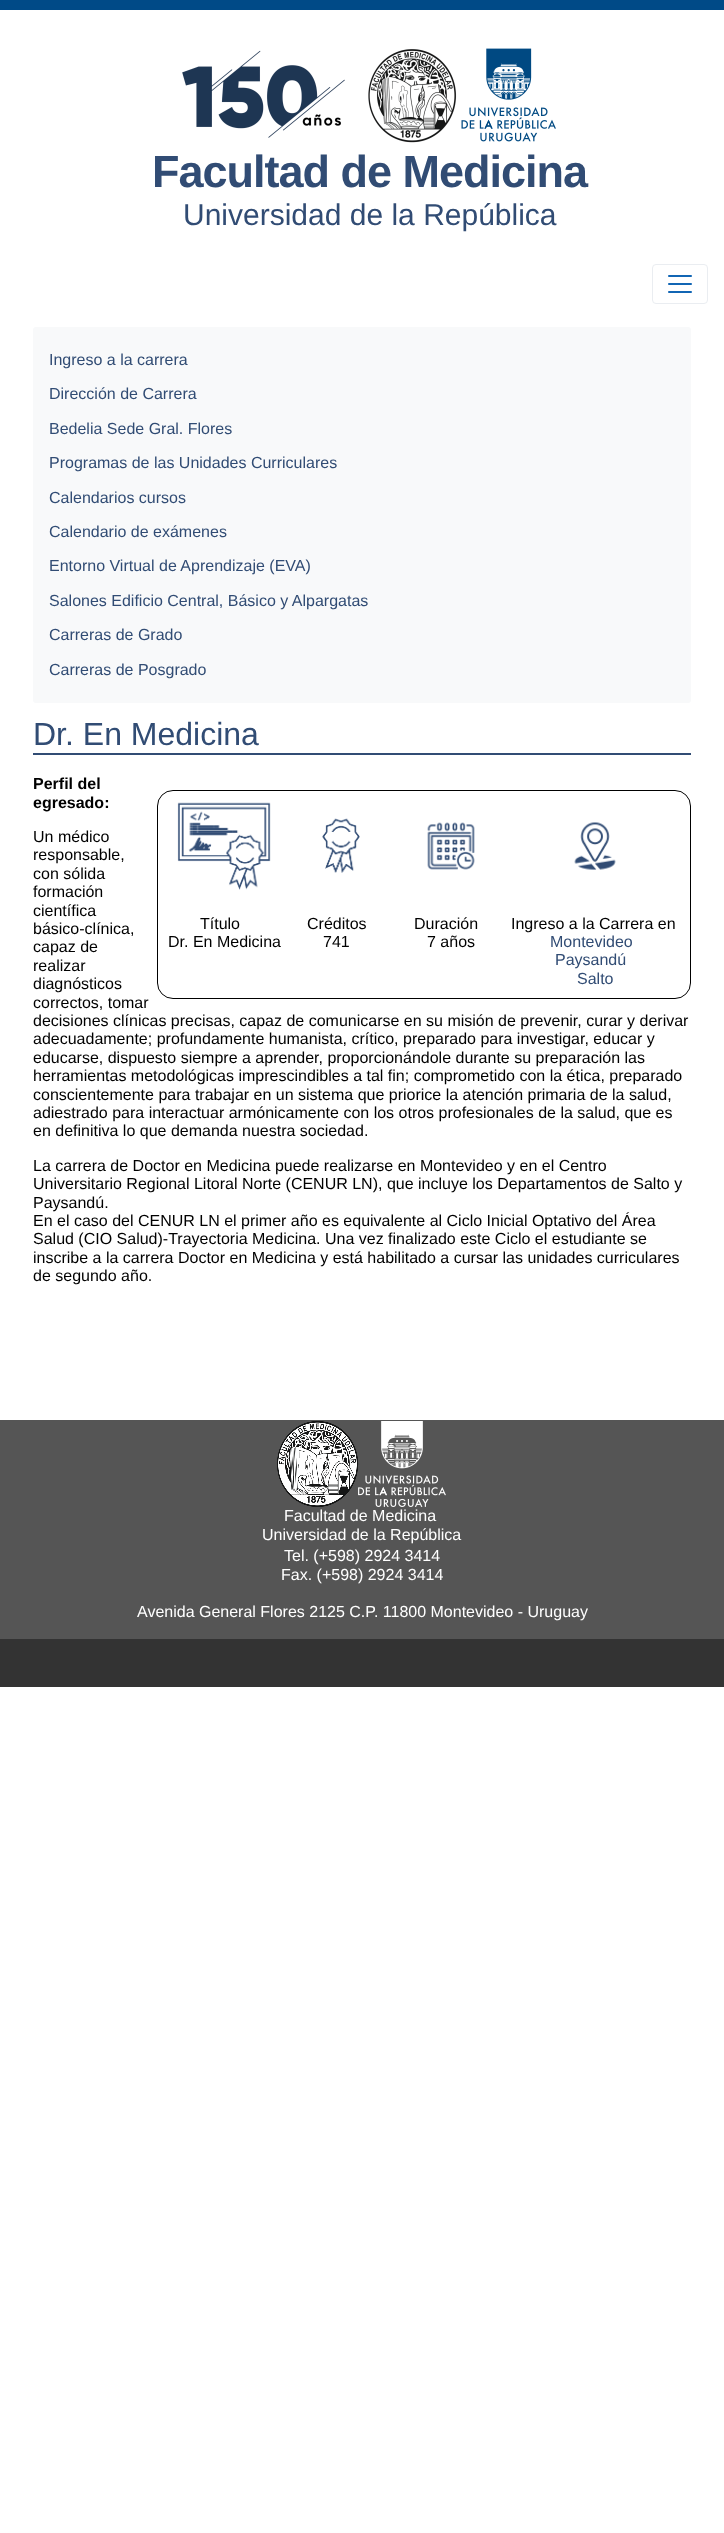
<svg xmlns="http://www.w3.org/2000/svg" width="724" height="2533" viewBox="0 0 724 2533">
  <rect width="100%" height="100%" fill="#ffffff"/>
  <rect x="0" y="0" width="724" height="10" fill="#004a87"/>
  <image x="182" y="48" width="374" height="95" href="img1.png"/>
  <text x="152" y="187" font-family="Liberation Sans" font-size="45" font-weight="bold" letter-spacing="-1" fill="#314c74">Facultad de Medicina</text>
  <text x="183" y="225" font-family="Liberation Sans" font-size="30" fill="#314c74">Universidad de la República</text>
  <rect x="652.5" y="264.5" width="55" height="39" rx="3.5" fill="none" stroke="#eaedf1"/>
  <image x="668" y="275" width="24" height="18" href="img2.png"/>
  <rect x="33" y="327" width="658" height="376" rx="3" fill="#f8f9fa"/>
  <text x="49" y="365" font-family="Liberation Sans" font-size="16" fill="#314c74">Ingreso a la carrera</text>
  <text x="49" y="399" font-family="Liberation Sans" font-size="16" fill="#314c74">Dirección de Carrera</text>
  <text x="49" y="434" font-family="Liberation Sans" font-size="16" fill="#314c74">Bedelia Sede Gral. Flores</text>
  <text x="49" y="468" font-family="Liberation Sans" font-size="16" fill="#314c74">Programas de las Unidades Curriculares</text>
  <text x="49" y="503" font-family="Liberation Sans" font-size="16" fill="#314c74">Calendarios cursos</text>
  <text x="49" y="537" font-family="Liberation Sans" font-size="16" fill="#314c74">Calendario de exámenes</text>
  <text x="49" y="571" font-family="Liberation Sans" font-size="16" fill="#314c74">Entorno Virtual de Aprendizaje (EVA)</text>
  <text x="49" y="606" font-family="Liberation Sans" font-size="16" fill="#314c74">Salones Edificio Central, Básico y Alpargatas</text>
  <text x="49" y="640" font-family="Liberation Sans" font-size="16" fill="#314c74">Carreras de Grado</text>
  <text x="49" y="675" font-family="Liberation Sans" font-size="16" fill="#314c74">Carreras de Posgrado</text>
  <rect x="33" y="753" width="658" height="2" fill="#314c74"/>
  <text x="33" y="745" font-family="Liberation Sans" font-size="32" fill="#314c74">Dr. En Medicina</text>
  <text x="33" y="789" font-family="Liberation Sans" font-size="16" font-weight="bold" fill="#000000">Perfil del</text>
  <text x="33" y="808" font-family="Liberation Sans" font-size="16" font-weight="bold" fill="#000000">egresado:</text>
  <text x="33" y="842" font-family="Liberation Sans" font-size="16" fill="#000000">Un médico</text>
  <text x="33" y="860" font-family="Liberation Sans" font-size="16" fill="#000000">responsable,</text>
  <text x="33" y="879" font-family="Liberation Sans" font-size="16" fill="#000000">con sólida</text>
  <text x="33" y="897" font-family="Liberation Sans" font-size="16" fill="#000000">formación</text>
  <text x="33" y="916" font-family="Liberation Sans" font-size="16" fill="#000000">científica</text>
  <text x="33" y="934" font-family="Liberation Sans" font-size="16" fill="#000000">básico-clínica,</text>
  <text x="33" y="952" font-family="Liberation Sans" font-size="16" fill="#000000">capaz de</text>
  <text x="33" y="971" font-family="Liberation Sans" font-size="16" fill="#000000">realizar</text>
  <text x="33" y="989" font-family="Liberation Sans" font-size="16" fill="#000000">diagnósticos</text>
  <text x="33" y="1008" font-family="Liberation Sans" font-size="16" fill="#000000">correctos, tomar</text>
  <text x="33" y="1026" font-family="Liberation Sans" font-size="16" fill="#000000">decisiones clínicas precisas, capaz de comunicarse en su misión de prevenir, curar y derivar</text>
  <text x="33" y="1044" font-family="Liberation Sans" font-size="16" fill="#000000">adecuadamente; profundamente humanista, crítico, preparado para investigar, educar y</text>
  <text x="33" y="1063" font-family="Liberation Sans" font-size="16" fill="#000000">educarse, dispuesto siempre a aprender, proporcionándole durante su preparación las</text>
  <text x="33" y="1081" font-family="Liberation Sans" font-size="16" fill="#000000">herramientas metodológicas imprescindibles a tal fin; comprometido con la ética, preparado</text>
  <text x="33" y="1100" font-family="Liberation Sans" font-size="16" fill="#000000">conscientemente para trabajar en un sistema que priorice la atención primaria de la salud,</text>
  <text x="33" y="1118" font-family="Liberation Sans" font-size="16" fill="#000000">adiestrado para interactuar armónicamente con los otros profesionales de la salud, que es</text>
  <text x="33" y="1136" font-family="Liberation Sans" font-size="16" fill="#000000">en definitiva lo que demanda nuestra sociedad.</text>
  <rect x="157.5" y="790.5" width="533" height="208" rx="15.5" fill="none" stroke="#000000"/>
  <image x="177" y="802" width="94" height="88" href="img3.png"/>
  <text x="200" y="929" font-family="Liberation Sans" font-size="16" fill="#000000">Título</text>
  <text x="168" y="947" font-family="Liberation Sans" font-size="16" fill="#000000">Dr. En Medicina</text>
  <image x="322" y="818" width="38" height="55" href="img4.png"/>
  <text x="307" y="929" font-family="Liberation Sans" font-size="16" fill="#000000">Créditos</text>
  <text x="323" y="947" font-family="Liberation Sans" font-size="16" fill="#000000">741</text>
  <image x="427" y="822" width="48" height="48" href="img5.png"/>
  <text x="414" y="929" font-family="Liberation Sans" font-size="16" fill="#000000">Duración</text>
  <text x="427" y="947" font-family="Liberation Sans" font-size="16" fill="#000000">7 años</text>
  <image x="574" y="822" width="42" height="48" href="img6.png"/>
  <text x="511" y="929" font-family="Liberation Sans" font-size="16" fill="#000000">Ingreso a la Carrera en</text>
  <text x="550" y="947" font-family="Liberation Sans" font-size="16" fill="#314c74">Montevideo</text>
  <text x="555" y="965" font-family="Liberation Sans" font-size="16" fill="#314c74">Paysandú</text>
  <text x="577" y="984" font-family="Liberation Sans" font-size="16" fill="#314c74">Salto</text>
  <text x="33" y="1171" font-family="Liberation Sans" font-size="16" fill="#000000">La carrera de Doctor en Medicina puede realizarse en Montevideo y en el Centro</text>
  <text x="33" y="1189" font-family="Liberation Sans" font-size="16" fill="#000000">Universitario Regional Litoral Norte (CENUR LN), que incluye los Departamentos de Salto y</text>
  <text x="33" y="1208" font-family="Liberation Sans" font-size="16" fill="#000000">Paysandú.</text>
  <text x="33" y="1226" font-family="Liberation Sans" font-size="16" fill="#000000">En el caso del CENUR LN el primer año es equivalente al Ciclo Inicial Optativo del Área</text>
  <text x="33" y="1244" font-family="Liberation Sans" font-size="16" fill="#000000">Salud (CIO Salud)-Trayectoria Medicina. Una vez finalizado este Ciclo el estudiante se</text>
  <text x="33" y="1263" font-family="Liberation Sans" font-size="16" fill="#000000">inscribe a la carrera Doctor en Medicina y está habilitado a cursar las unidades curriculares</text>
  <text x="33" y="1281" font-family="Liberation Sans" font-size="16" fill="#000000">de segundo año.</text>
  <rect x="0" y="1420" width="724" height="219" fill="#555555"/>
  <image x="277" y="1421" width="169" height="86" href="img7.png"/>
  <text x="284" y="1521" font-family="Liberation Sans" font-size="16" fill="#ffffff">Facultad de Medicina</text>
  <text x="262" y="1540" font-family="Liberation Sans" font-size="16" fill="#ffffff">Universidad de la República</text>
  <text x="284" y="1561" font-family="Liberation Sans" font-size="16" fill="#ffffff">Tel. (+598) 2924 3414</text>
  <text x="281" y="1580" font-family="Liberation Sans" font-size="16" fill="#ffffff">Fax. (+598) 2924 3414</text>
  <text x="137" y="1617" font-family="Liberation Sans" font-size="16" fill="#ffffff">Avenida General Flores 2125 C.P. 11800 Montevideo - Uruguay</text>
  <rect x="0" y="1639" width="724" height="48" fill="#333333"/>
</svg>
